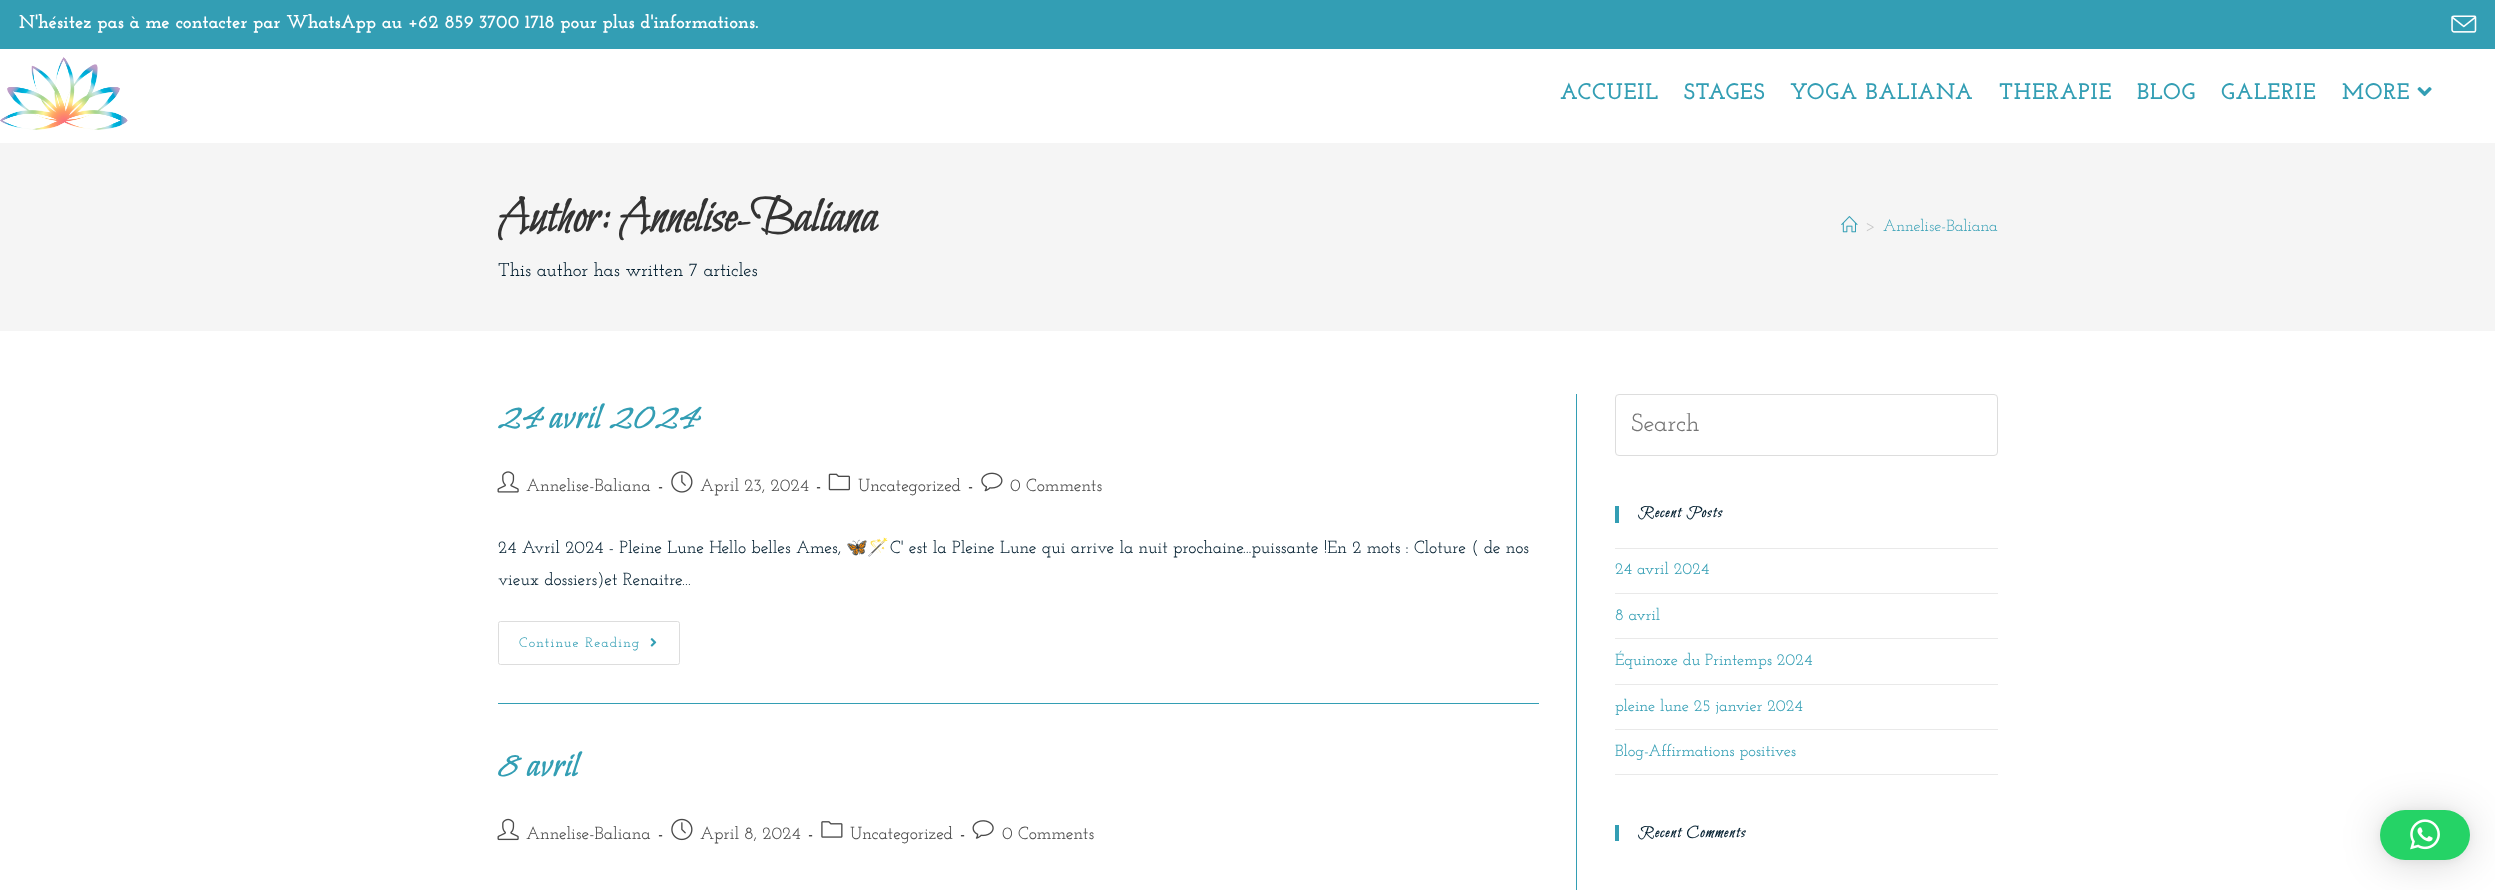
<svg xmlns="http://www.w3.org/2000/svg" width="2495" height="890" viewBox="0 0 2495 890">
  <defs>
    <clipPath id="clip1"><rect x="1631" y="413" width="350" height="25"/></clipPath>
    <filter id="blur1" x="-50%" y="-200%" width="200%" height="500%"><feGaussianBlur stdDeviation="20"/></filter>
    <filter id="blur2" x="-50%" y="-200%" width="200%" height="500%"><feGaussianBlur stdDeviation="4"/></filter>
  </defs>
  <rect width="100%" height="100%" fill="#ffffff"/>
  <rect x="0" y="0" width="2495" height="49" fill="#339eb4"/>
  <text x="19" y="28" font-family="Josefin Slab" font-size="18.75" font-weight="bold" fill="#ffffff">N'hésitez pas à me contacter par WhatsApp au +62 859 3700 1718 pour plus d'informations.</text>
  <image x="2451" y="15" width="26" height="18" href="img1.png"/>
  <image x="0" y="57" width="128" height="73" href="img2.png"/>
  <text x="1560" y="99" font-family="Josefin Slab" font-size="22.5" font-weight="bold" letter-spacing="0.75" fill="#339eb4">ACCUEIL</text>
  <text x="1684" y="99" font-family="Josefin Slab" font-size="22.5" font-weight="bold" letter-spacing="0.75" fill="#339eb4">STAGES</text>
  <text x="1790" y="99" font-family="Josefin Slab" font-size="22.5" font-weight="bold" letter-spacing="0.75" fill="#339eb4">YOGA BALIANA</text>
  <text x="1999" y="99" font-family="Josefin Slab" font-size="22.5" font-weight="bold" letter-spacing="0.75" fill="#339eb4">THERAPIE</text>
  <text x="2137" y="99" font-family="Josefin Slab" font-size="22.5" font-weight="bold" letter-spacing="0.75" fill="#339eb4">BLOG</text>
  <text x="2221" y="99" font-family="Josefin Slab" font-size="22.5" font-weight="bold" letter-spacing="0.75" fill="#339eb4">GALERIE</text>
  <text x="2342" y="99" font-family="Josefin Slab" font-size="22.5" font-weight="bold" letter-spacing="0.75" fill="#339eb4">MORE</text>
  <image x="2417" y="87" width="15" height="10" href="img3.png"/>
  <rect x="0" y="143" width="2495" height="188" fill="#f5f5f5"/>
  <text x="498" y="231" font-family="Bilbo Swash Caps" font-size="50" font-weight="bold" fill="#333333">Author: Annelise-Baliana</text>
  <image x="1841" y="216" width="17" height="17" href="img4.png"/>
  <text x="1865" y="231" font-family="Josefin Slab" font-size="16.25" fill="#c6c6c6">&gt;</text>
  <text x="1883" y="231" font-family="Josefin Slab" font-size="16.25" fill="#339eb4">Annelise-Baliana</text>
  <text x="498" y="276" font-family="Josefin Slab" font-size="18.75" font-weight="500" fill="#031f30">This author has written 7 articles</text>
  <rect x="1576" y="394" width="1" height="496" fill="#339eb4"/>
  <rect x="498" y="703" width="1041" height="1" fill="#339eb4"/>
  <text x="498" y="428" font-family="Bilbo Swash Caps" font-size="37.5" font-weight="bold" letter-spacing="0.75" fill="#339eb4">24 avril 2024</text>
  <image x="497" y="471" width="22" height="22" href="img5.png"/>
  <text x="526" y="491" font-family="Josefin Slab" font-size="17.5" font-weight="500" fill="#4a4a4a">Annelise-Baliana</text>
  <text x="658" y="491" font-family="Josefin Slab" font-size="17.5" font-weight="bold" fill="#4a4a4a">-</text>
  <image x="671" y="471" width="22" height="22" href="img6.png"/>
  <text x="700" y="491" font-family="Josefin Slab" font-size="17.5" font-weight="500" fill="#4a4a4a">April 23, 2024</text>
  <text x="816" y="491" font-family="Josefin Slab" font-size="17.5" font-weight="bold" fill="#4a4a4a">-</text>
  <image x="828" y="473" width="22" height="18" href="img7.png"/>
  <text x="858" y="491" font-family="Josefin Slab" font-size="17.5" font-weight="500" fill="#4a4a4a">Uncategorized</text>
  <text x="968" y="491" font-family="Josefin Slab" font-size="17.5" font-weight="bold" fill="#4a4a4a">-</text>
  <image x="981" y="472" width="22" height="20" href="img8.png"/>
  <text x="1010" y="491" font-family="Josefin Slab" font-size="17.5" font-weight="500" fill="#4a4a4a">0 Comments</text>
  <text x="498" y="553" font-family="Josefin Slab" font-size="17.5" font-weight="500" fill="#031f30">24 Avril 2024 - Pleine Lune Hello belles Ames,</text>
  <text x="846" y="553" font-family="Noto Color Emoji" font-size="17.5" fill="#031f30">🦋🪄</text>
  <text x="890" y="553" font-family="Josefin Slab" font-size="17.5" font-weight="500" fill="#031f30">C' est la Pleine Lune qui arrive la nuit prochaine...puissante !En 2 mots : Cloture ( de nos</text>
  <text x="498" y="585" font-family="Josefin Slab" font-size="17.5" font-weight="500" fill="#031f30">vieux dossiers)et Renaitre…</text>
  <rect x="498.5" y="621.5" width="181" height="43" rx="2" fill="none" stroke="#dddddd"/>
  <text x="519" y="647" font-family="Josefin Slab" font-size="13.75" font-weight="500" letter-spacing="1.25" fill="#339eb4">Continue Reading</text>
  <image x="650" y="638" width="7" height="9" href="img9.png"/>
  <text x="498" y="776" font-family="Bilbo Swash Caps" font-size="37.5" font-weight="bold" letter-spacing="0.75" fill="#339eb4">8 avril</text>
  <image x="497" y="818" width="22" height="23" href="img10.png"/>
  <text x="526" y="839" font-family="Josefin Slab" font-size="17.5" font-weight="500" fill="#4a4a4a">Annelise-Baliana</text>
  <text x="658" y="839" font-family="Josefin Slab" font-size="17.5" font-weight="bold" fill="#4a4a4a">-</text>
  <image x="671" y="818" width="22" height="23" href="img11.png"/>
  <text x="700" y="839" font-family="Josefin Slab" font-size="17.5" font-weight="500" fill="#4a4a4a">April 8, 2024</text>
  <text x="808" y="839" font-family="Josefin Slab" font-size="17.5" font-weight="bold" fill="#4a4a4a">-</text>
  <image x="821" y="821" width="22" height="17" href="img12.png"/>
  <text x="850" y="839" font-family="Josefin Slab" font-size="17.5" font-weight="500" fill="#4a4a4a">Uncategorized</text>
  <text x="960" y="839" font-family="Josefin Slab" font-size="17.5" font-weight="bold" fill="#4a4a4a">-</text>
  <image x="972" y="820" width="22" height="19" href="img13.png"/>
  <text x="1002" y="839" font-family="Josefin Slab" font-size="17.5" font-weight="500" fill="#4a4a4a">0 Comments</text>
  <rect x="1615.5" y="394.5" width="382" height="61" rx="3.5" fill="none" stroke="#dddddd"/>
  <g clip-path="url(#clip1)">
    <text x="1631" y="431" font-family="Josefin Slab" font-size="25" font-weight="500" fill="#757575">Search</text>
  </g>
  <rect x="1615" y="506" width="4" height="17" fill="#339eb4"/>
  <text x="1638" y="517" font-family="Bilbo Swash Caps" font-size="16.25" font-weight="bold" letter-spacing="1.25" fill="#031f30">Recent Posts</text>
  <rect x="1615" y="548" width="383" height="1" fill="#e9e9e9"/>
  <rect x="1615" y="593" width="383" height="1" fill="#e9e9e9"/>
  <text x="1615" y="574" font-family="Josefin Slab" font-size="16.25" font-weight="500" fill="#339eb4">24 avril 2024</text>
  <rect x="1615" y="638" width="383" height="1" fill="#e9e9e9"/>
  <text x="1615" y="620" font-family="Josefin Slab" font-size="16.25" font-weight="500" fill="#339eb4">8 avril</text>
  <rect x="1615" y="684" width="383" height="1" fill="#e9e9e9"/>
  <text x="1615" y="665" font-family="Josefin Slab" font-size="16.25" font-weight="500" fill="#339eb4">Équinoxe du Printemps 2024</text>
  <rect x="1615" y="729" width="383" height="1" fill="#e9e9e9"/>
  <text x="1615" y="711" font-family="Josefin Slab" font-size="16.25" font-weight="500" fill="#339eb4">pleine lune 25 janvier 2024</text>
  <rect x="1615" y="774" width="383" height="1" fill="#e9e9e9"/>
  <text x="1615" y="756" font-family="Josefin Slab" font-size="16.25" font-weight="500" fill="#339eb4">Blog-Affirmations positives</text>
  <rect x="1615" y="825" width="4" height="16" fill="#339eb4"/>
  <text x="1638" y="837" font-family="Bilbo Swash Caps" font-size="16.25" font-weight="bold" letter-spacing="1.25" fill="#031f30">Recent Comments</text>
  <rect x="2380" y="813" width="90" height="50" rx="25" fill="#000000" fill-opacity="0.16" filter="url(#blur1)"/>
  <rect x="2380" y="811" width="90" height="50" rx="25" fill="#000000" fill-opacity="0.06" filter="url(#blur2)"/>
  <rect x="2380" y="810" width="90" height="50" rx="25" fill="#25d366"/>
  <image x="2410" y="819" width="30" height="31" href="img14.png"/>
</svg>
